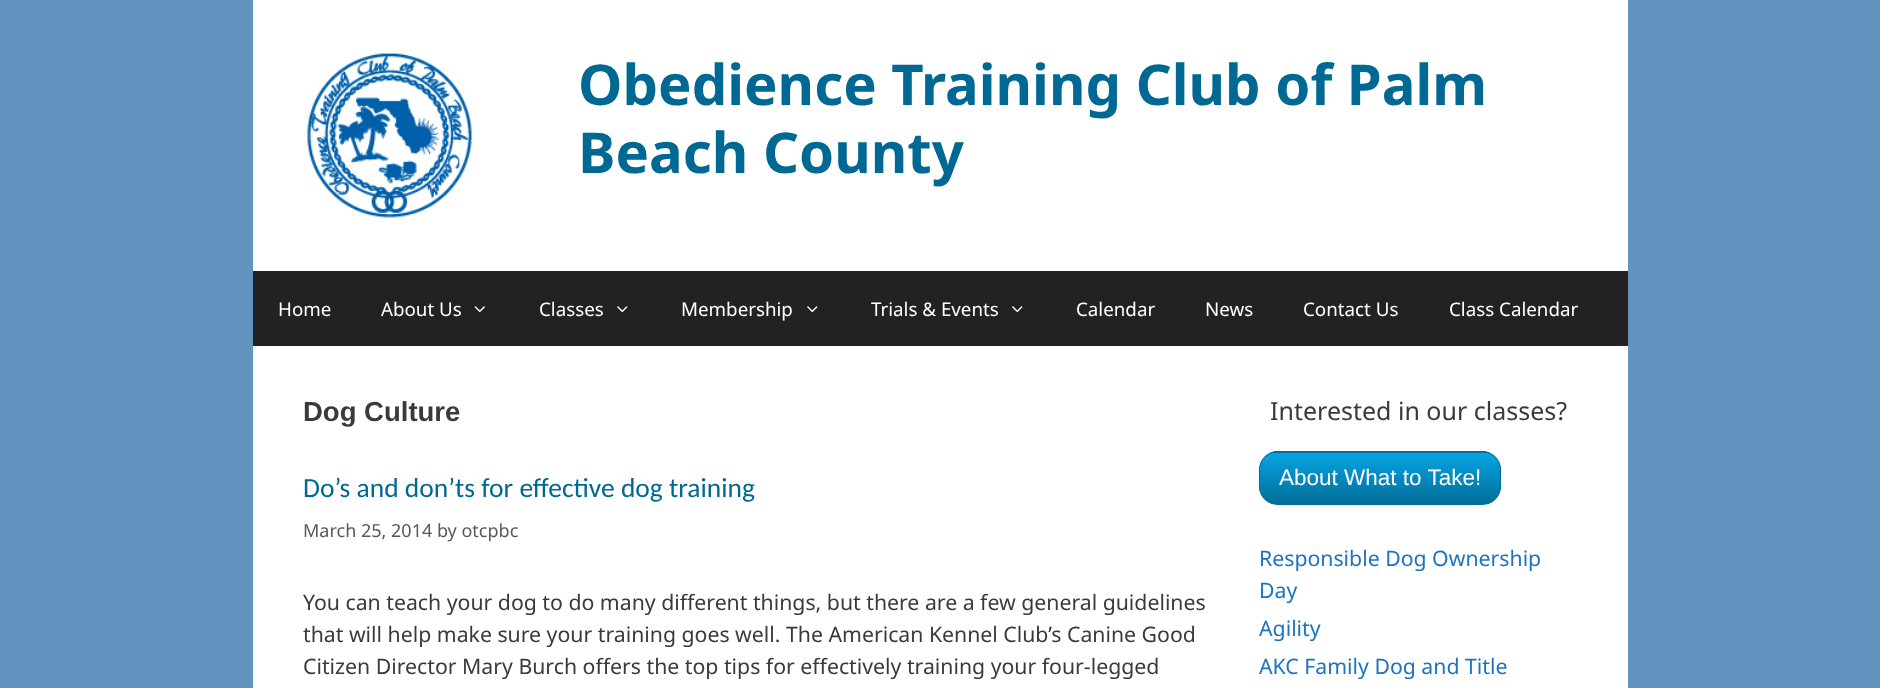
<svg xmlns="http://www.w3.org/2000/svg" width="1880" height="688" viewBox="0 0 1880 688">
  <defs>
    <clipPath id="clip1"><rect x="1259" y="451" width="242" height="54" rx="19"/></clipPath>
    <linearGradient id="g1" gradientUnits="userSpaceOnUse" x1="1380" y1="401" x2="1380" y2="453"><stop offset="0" stop-color="#06a4e2"/><stop offset="1" stop-color="#016e9a"/></linearGradient>
    <linearGradient id="g2" gradientUnits="userSpaceOnUse" x1="1380" y1="453" x2="1380" y2="504"><stop offset="0" stop-color="#06a4e2"/><stop offset="1" stop-color="#016e9a"/></linearGradient>
  </defs>
  <rect width="100%" height="100%" fill="#6394bf"/>
  <rect x="253" y="0" width="1375" height="271" fill="#ffffff"/>
  <image x="307" y="53" width="165" height="165" href="img1.png"/>
  <text x="578" y="105" font-family="Noto Sans" font-size="56.25" font-weight="bold" fill="#006993">Obedience Training Club of Palm</text>
  <text x="578" y="173" font-family="Noto Sans" font-size="56.25" font-weight="bold" fill="#006993">Beach County</text>
  <rect x="253" y="271" width="1375" height="75" fill="#222222"/>
  <text x="278" y="316" font-family="Noto Sans" font-size="18.75" fill="#ffffff">Home</text>
  <text x="381" y="316" font-family="Noto Sans" font-size="18.75" fill="#ffffff">About Us</text>
  <image x="474" y="306" width="11" height="7" href="img2.png"/>
  <text x="539" y="316" font-family="Noto Sans" font-size="18.75" fill="#ffffff">Classes</text>
  <image x="617" y="306" width="11" height="7" href="img3.png"/>
  <text x="681" y="316" font-family="Noto Sans" font-size="18.75" fill="#ffffff">Membership</text>
  <image x="807" y="306" width="11" height="7" href="img3.png"/>
  <text x="871" y="316" font-family="Noto Sans" font-size="18.75" fill="#ffffff">Trials &amp; Events</text>
  <image x="1012" y="306" width="11" height="7" href="img3.png"/>
  <text x="1076" y="316" font-family="Noto Sans" font-size="18.75" fill="#ffffff">Calendar</text>
  <text x="1205" y="316" font-family="Noto Sans" font-size="18.75" fill="#ffffff">News</text>
  <text x="1303" y="316" font-family="Noto Sans" font-size="18.75" fill="#ffffff">Contact Us</text>
  <text x="1449" y="316" font-family="Noto Sans" font-size="18.75" fill="#ffffff">Class Calendar</text>
  <rect x="253" y="346" width="1375" height="342" fill="#ffffff"/>
  <text x="303" y="421" font-family="Liberation Sans" font-size="27.5" font-weight="bold" fill="#3a3a3a">Dog Culture</text>
  <text x="303" y="497" font-family="Carlito" font-size="27.5" fill="#006993">Do’s and don’ts for effective dog training</text>
  <text x="303" y="537" font-family="Noto Sans" font-size="18" fill="#595959">March 25, 2014 by otcpbc</text>
  <text x="303" y="610" font-family="Noto Sans" font-size="21.25" fill="#3a3a3a">You can teach your dog to do many different things, but there are a few general guidelines</text>
  <text x="303" y="642" font-family="Noto Sans" font-size="21.25" fill="#3a3a3a">that will help make sure your training goes well. The American Kennel Club’s Canine Good</text>
  <text x="303" y="674" font-family="Noto Sans" font-size="21.25" fill="#3a3a3a">Citizen Director Mary Burch offers the top tips for effectively training your four-legged</text>
  <text x="1270" y="420" font-family="Noto Sans" font-size="25" fill="#3a3a3a">Interested in our classes?</text>
  <g clip-path="url(#clip1)">
    <rect x="1269" y="451" width="222" height="2" fill="url(#g1)"/>
    <rect x="1259" y="453" width="242" height="51" fill="url(#g2)"/>
  </g>
  <rect x="1259.5" y="451.5" width="241" height="53" rx="18.5" fill="none" stroke="#016e9a"/>
  <text x="1279" y="485" font-family="Liberation Sans" font-size="22.5" fill="#ffffff">About What to Take!</text>
  <text x="1259" y="566" font-family="Noto Sans" font-size="21.25" fill="#1e73be">Responsible Dog Ownership</text>
  <text x="1259" y="598" font-family="Noto Sans" font-size="21.25" fill="#1e73be">Day</text>
  <text x="1259" y="636" font-family="Noto Sans" font-size="21.25" fill="#1e73be">Agility</text>
  <text x="1259" y="674" font-family="Noto Sans" font-size="21.25" fill="#1e73be">AKC Family Dog and Title</text>
</svg>
